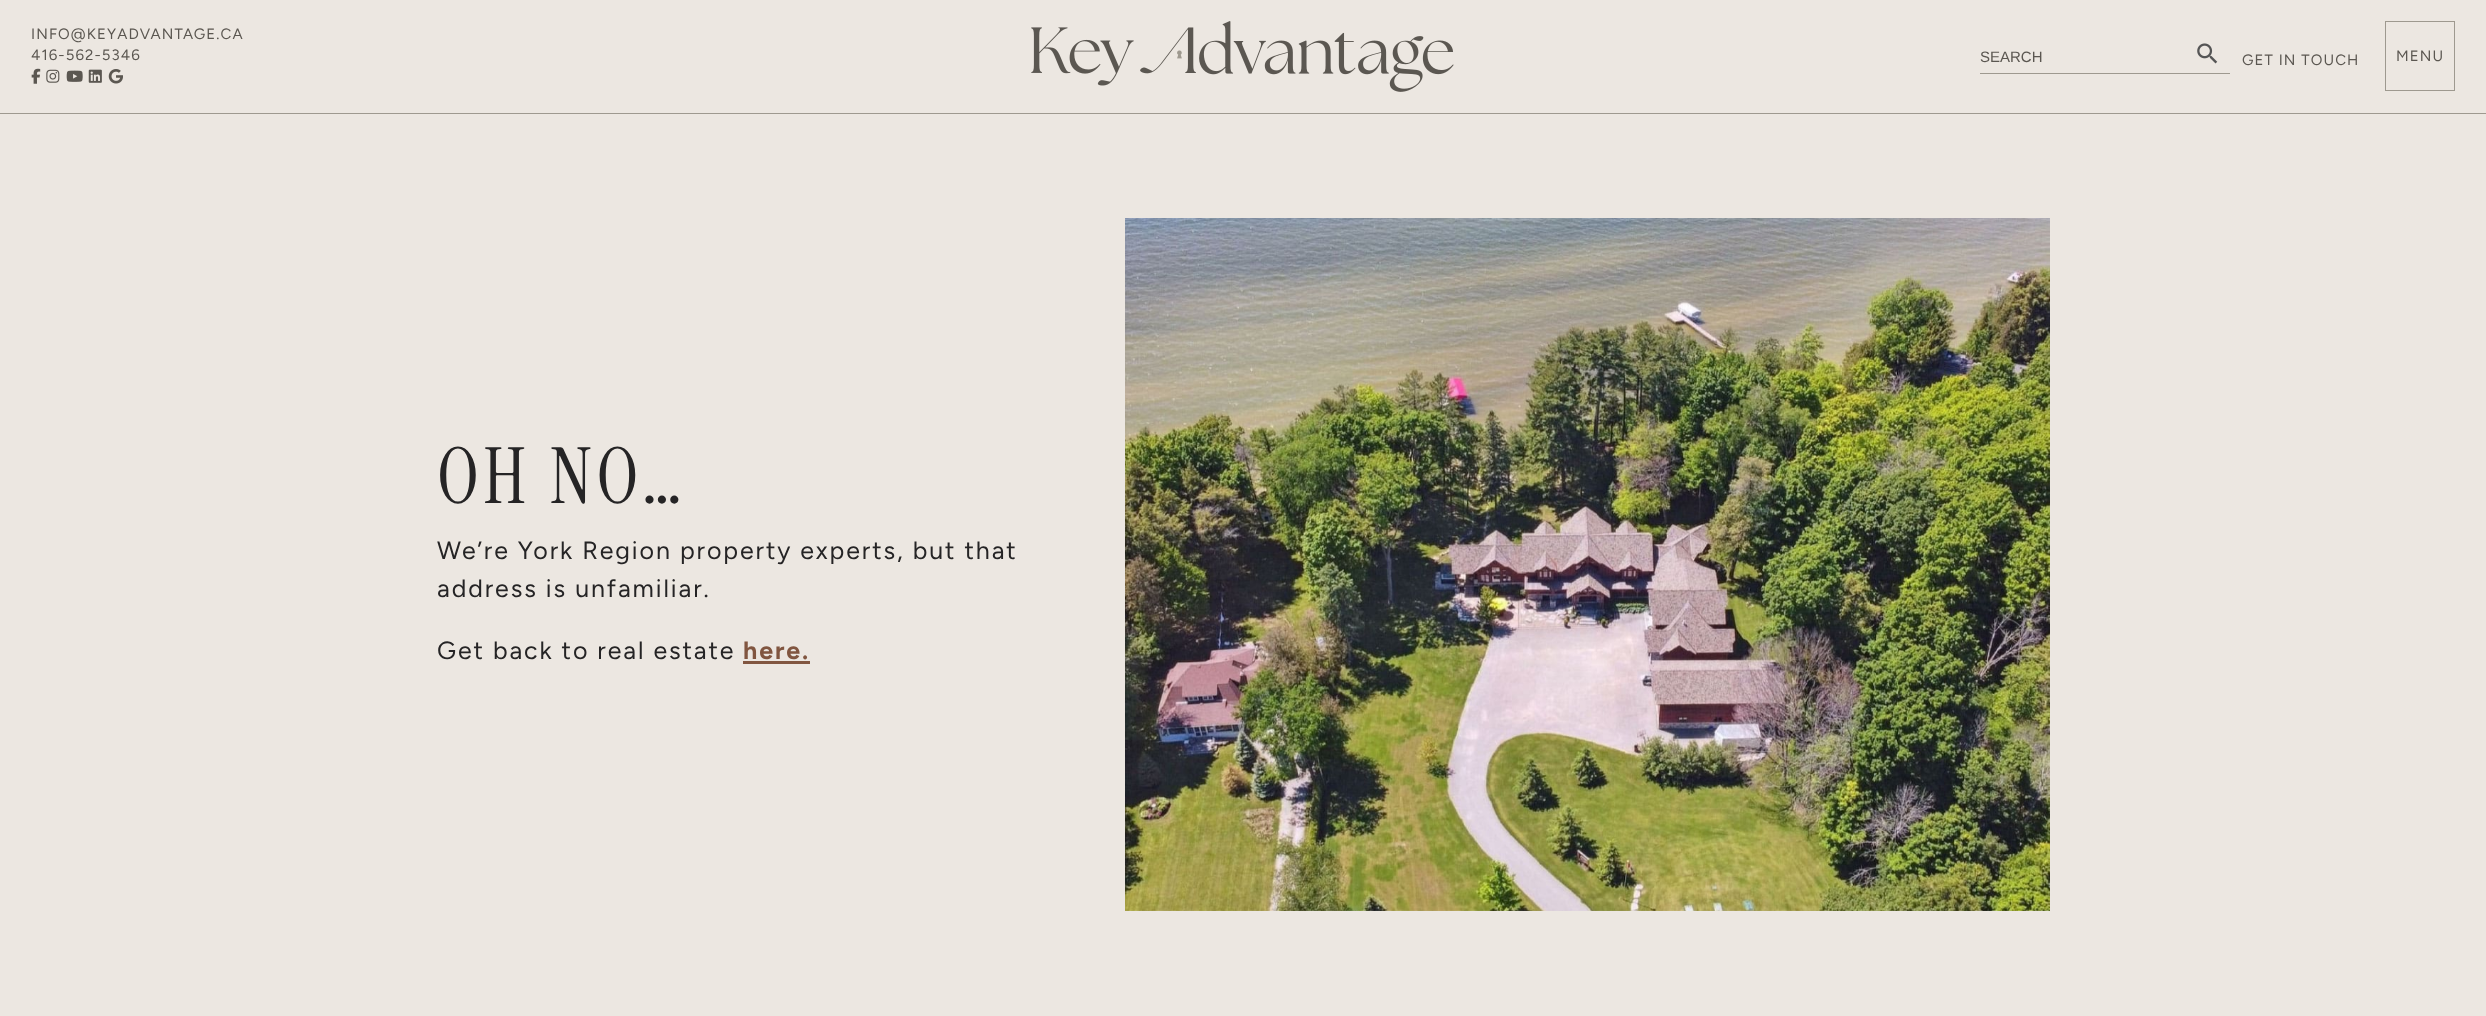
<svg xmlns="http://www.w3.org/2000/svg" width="2486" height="1016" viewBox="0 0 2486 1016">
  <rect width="100%" height="100%" fill="#ece7e1"/>
  <text x="31" y="39" font-family="Figtree" font-size="15" letter-spacing="1.1" fill="#5b5751">INFO@KEYADVANTAGE.CA</text>
  <text x="31" y="60" font-family="Figtree" font-size="15" letter-spacing="1.1" fill="#5b5751">416-562-5346</text>
  <image x="31" y="68" width="10" height="16" href="img1.png"/>
  <image x="46" y="69" width="14" height="14" href="img2.png"/>
  <image x="66" y="70" width="17" height="12" href="img3.png"/>
  <image x="88" y="69" width="14" height="14" href="img4.png"/>
  <image x="108" y="69" width="15" height="15" href="img5.png"/>
  <image x="1031" y="21" width="423" height="71" href="img6.png"/>
  <rect x="1980" y="73" width="250" height="1" fill="#9e998f"/>
  <text x="1980" y="62" font-family="Liberation Sans" font-size="15" fill="#5b5751">SEARCH</text>
  <image x="2197" y="43" width="21" height="21" href="img7.png"/>
  <text x="2242" y="65" font-family="Figtree" font-size="15" letter-spacing="1.1" fill="#5b5751">GET IN TOUCH</text>
  <rect x="2385.5" y="21.5" width="69" height="69" fill="none" stroke="#9e998f"/>
  <text x="2396" y="61" font-family="Figtree" font-size="15" letter-spacing="1.1" fill="#5b5751">MENU</text>
  <rect x="0" y="113" width="2486" height="1" fill="#9e998f"/>
  <text x="437" y="503" font-family="Instrument Serif" font-size="77.5" letter-spacing="5.5" fill="#252425">OH NO…</text>
  <text x="437" y="559" font-family="Figtree" font-size="25" letter-spacing="1.9" fill="#252425">We’re York Region property experts, but that</text>
  <text x="437" y="597" font-family="Figtree" font-size="25" letter-spacing="1.9" fill="#252425">address is unfamiliar.</text>
  <text x="437" y="659" font-family="Figtree" font-size="25" letter-spacing="1.9" fill="#252425">Get back to real estate</text>
  <text x="743" y="659" font-family="Figtree" font-size="25" font-weight="bold" letter-spacing="1.9" fill="#815640">here.</text>
  <rect x="743" y="661" width="67" height="3" fill="#815640"/>
  <image x="1125" y="218" width="925" height="693" href="img8.png"/>
</svg>
